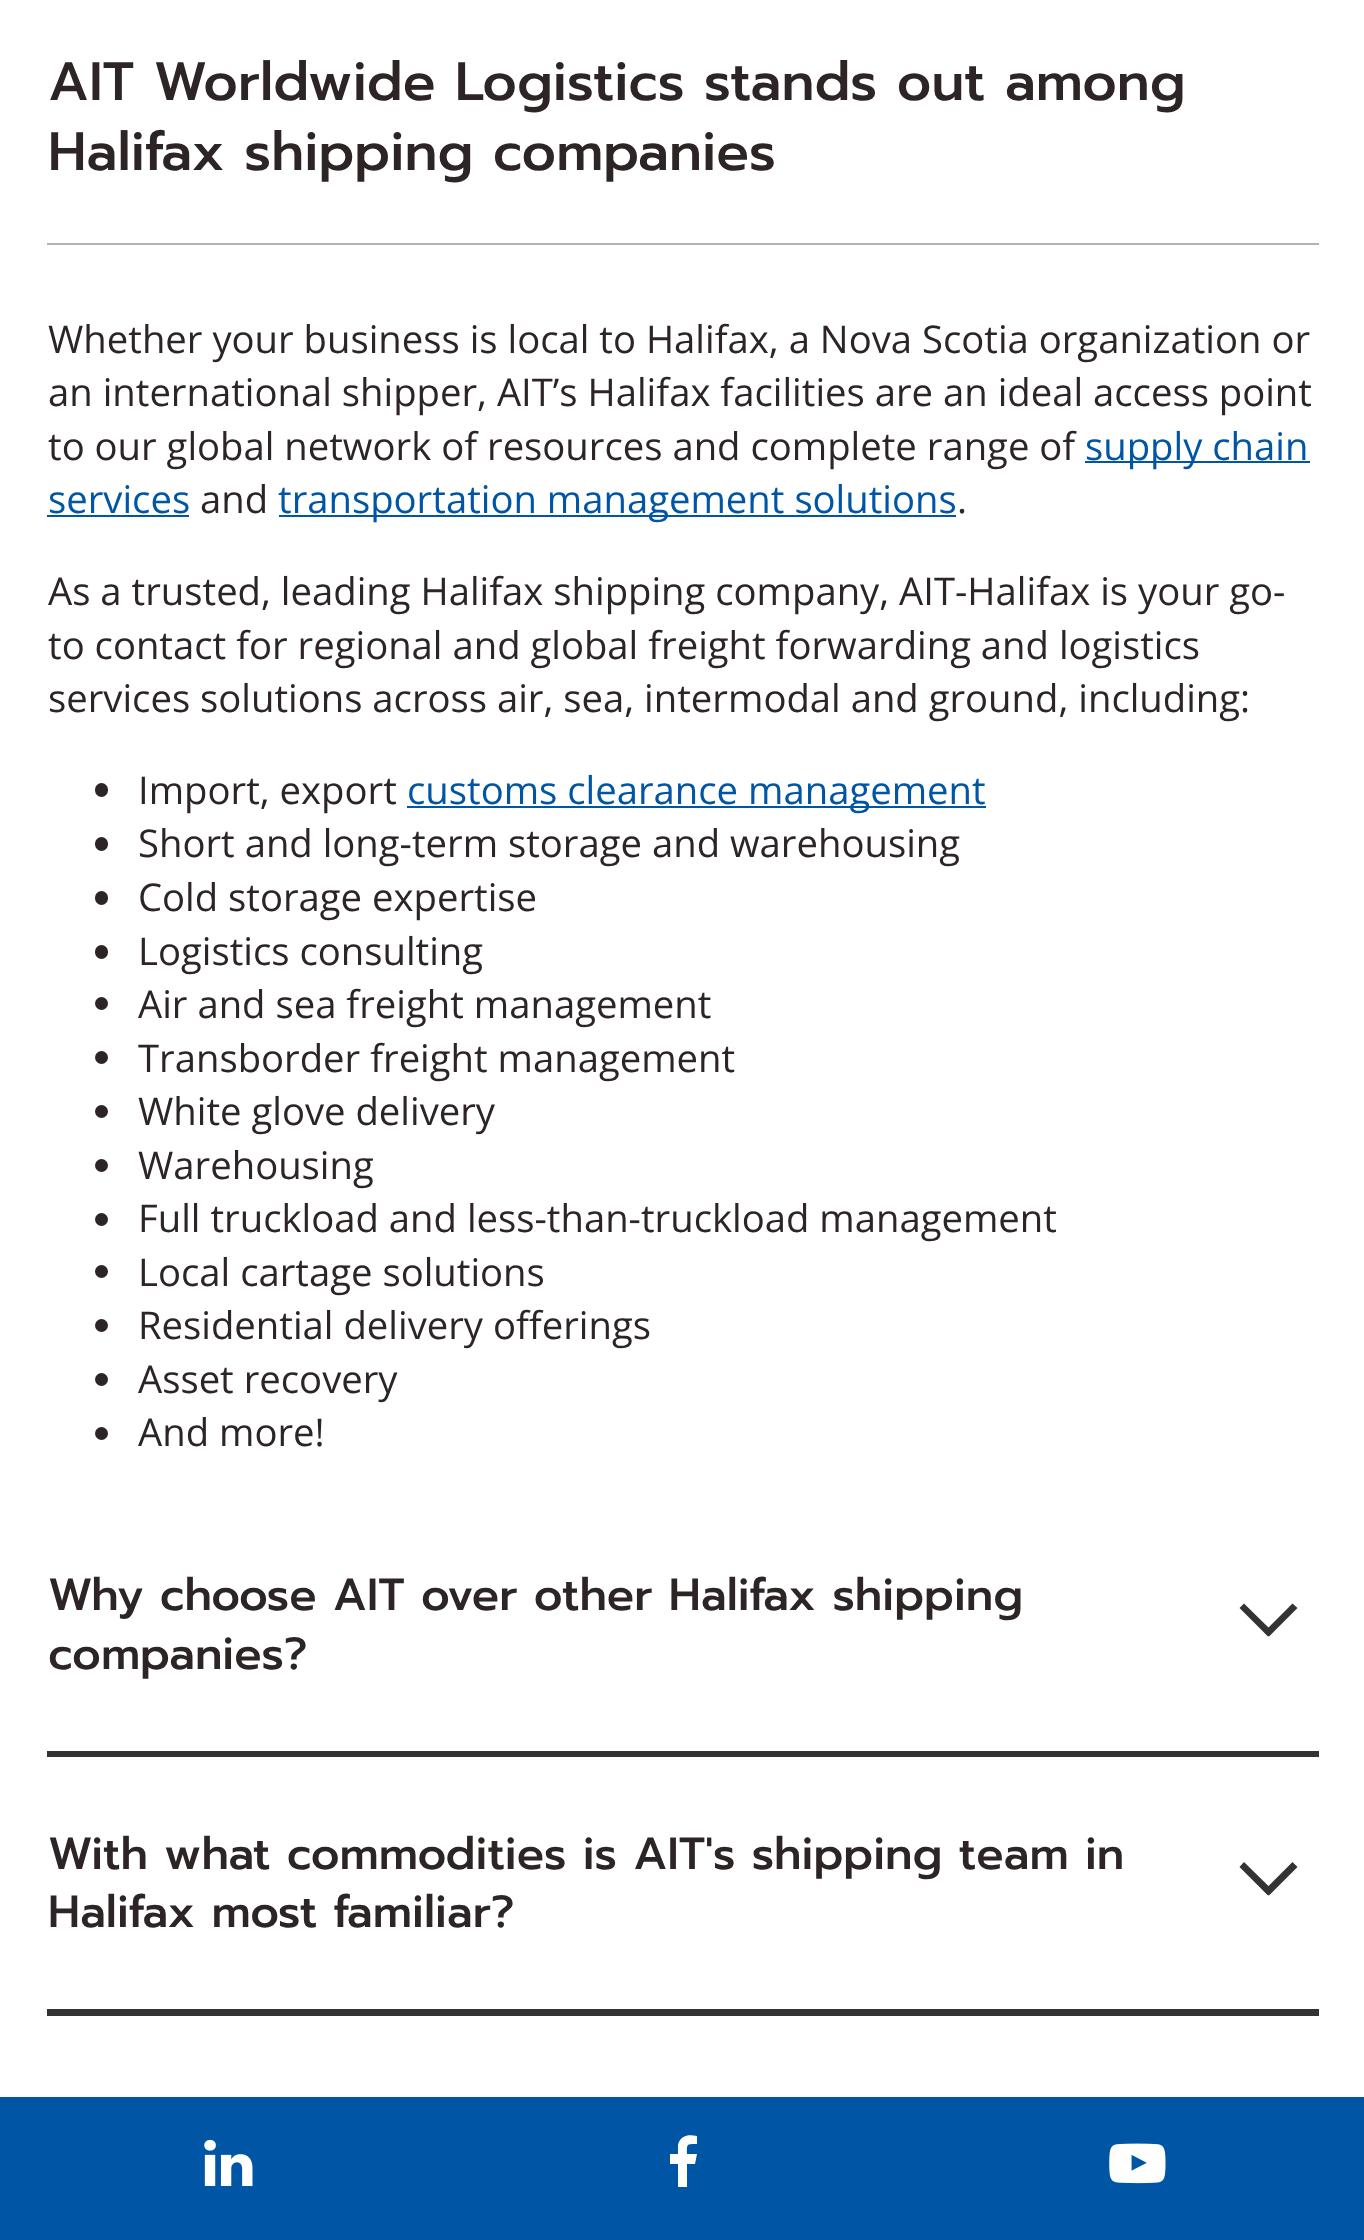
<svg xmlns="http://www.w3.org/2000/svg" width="1364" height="2240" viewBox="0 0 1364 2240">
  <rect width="100%" height="100%" fill="#ffffff"/>
  <rect x="47" y="243" width="1272" height="2" fill="#b2b2b2"/>
  <text x="48" y="100" font-family="Prompt" font-size="54" font-weight="500" fill="#2d2525">AIT Worldwide Logistics stands out among</text>
  <text x="48" y="170" font-family="Prompt" font-size="54" font-weight="500" fill="#2d2525">Halifax shipping companies</text>
  <text x="48" y="353" font-family="Open Sans" font-size="38.25" fill="#2d2525">Whether your business is local to Halifax, a Nova Scotia organization or</text>
  <text x="48" y="406" font-family="Open Sans" font-size="38.25" fill="#2d2525">an international shipper, AIT’s Halifax facilities are an ideal access point</text>
  <text x="48" y="460" font-family="Open Sans" font-size="38.25" fill="#2d2525">to our global network of resources and complete range of</text>
  <rect x="1085" y="461" width="225" height="2" fill="#0055a5"/>
  <text x="1085" y="460" font-family="Open Sans" font-size="38.25" fill="#0055a5">supply chain</text>
  <text x="48" y="513" font-family="Open Sans" font-size="38.25" fill="#0055a5">services</text>
  <rect x="47" y="515" width="142" height="2" fill="#0055a5"/>
  <text x="200" y="513" font-family="Open Sans" font-size="38.25" fill="#2d2525">and</text>
  <rect x="279" y="515" width="677" height="2" fill="#0055a5"/>
  <text x="278" y="513" font-family="Open Sans" font-size="38.25" fill="#0055a5">transportation management solutions</text>
  <text x="957" y="513" font-family="Open Sans" font-size="38.25" fill="#2d2525">.</text>
  <text x="48" y="605" font-family="Open Sans" font-size="38.25" fill="#2d2525">As a trusted, leading Halifax shipping company, AIT-Halifax is your go-</text>
  <text x="48" y="659" font-family="Open Sans" font-size="38.25" fill="#2d2525">to contact for regional and global freight forwarding and logistics</text>
  <text x="48" y="712" font-family="Open Sans" font-size="38.25" fill="#2d2525">services solutions across air, sea, intermodal and ground, including:</text>
  <rect x="95" y="783" width="13" height="14" rx="6.5" fill="#2d2525"/>
  <text x="138" y="804" font-family="Open Sans" font-size="38.25" fill="#2d2525">Import, export</text>
  <rect x="407" y="806" width="579" height="2" fill="#0055a5"/>
  <text x="407" y="804" font-family="Open Sans" font-size="38.25" fill="#0055a5">customs clearance management</text>
  <rect x="95" y="837" width="13" height="14" rx="6.5" fill="#2d2525"/>
  <text x="138" y="857" font-family="Open Sans" font-size="38.25" fill="#2d2525">Short and long-term storage and warehousing</text>
  <rect x="95" y="891" width="13" height="14" rx="6.5" fill="#2d2525"/>
  <text x="138" y="911" font-family="Open Sans" font-size="38.25" fill="#2d2525">Cold storage expertise</text>
  <rect x="95" y="945" width="13" height="14" rx="6.5" fill="#2d2525"/>
  <text x="138" y="965" font-family="Open Sans" font-size="38.25" fill="#2d2525">Logistics consulting</text>
  <circle cx="101.5" cy="1003.5" r="6.5" fill="#2d2525"/>
  <text x="138" y="1018" font-family="Open Sans" font-size="38.25" fill="#2d2525">Air and sea freight management</text>
  <circle cx="101.5" cy="1057.5" r="6.5" fill="#2d2525"/>
  <text x="138" y="1072" font-family="Open Sans" font-size="38.25" fill="#2d2525">Transborder freight management</text>
  <circle cx="101.5" cy="1111.5" r="6.5" fill="#2d2525"/>
  <text x="138" y="1125" font-family="Open Sans" font-size="38.25" fill="#2d2525">White glove delivery</text>
  <circle cx="101.5" cy="1165.5" r="6.5" fill="#2d2525"/>
  <text x="138" y="1179" font-family="Open Sans" font-size="38.25" fill="#2d2525">Warehousing</text>
  <circle cx="101.5" cy="1219.5" r="6.5" fill="#2d2525"/>
  <text x="138" y="1232" font-family="Open Sans" font-size="38.25" fill="#2d2525">Full truckload and less-than-truckload management</text>
  <circle cx="101.5" cy="1271.5" r="6.5" fill="#2d2525"/>
  <text x="138" y="1286" font-family="Open Sans" font-size="38.25" fill="#2d2525">Local cartage solutions</text>
  <circle cx="101.5" cy="1325.5" r="6.5" fill="#2d2525"/>
  <text x="138" y="1339" font-family="Open Sans" font-size="38.25" fill="#2d2525">Residential delivery offerings</text>
  <circle cx="101.5" cy="1379.5" r="6.5" fill="#2d2525"/>
  <text x="138" y="1393" font-family="Open Sans" font-size="38.25" fill="#2d2525">Asset recovery</text>
  <circle cx="101.5" cy="1433.5" r="6.5" fill="#2d2525"/>
  <text x="138" y="1446" font-family="Open Sans" font-size="38.25" fill="#2d2525">And more!</text>
  <rect x="47" y="1751" width="1272" height="6" fill="#333333"/>
  <text x="48" y="1610" font-family="Prompt" font-size="45" font-weight="500" fill="#2d2525">Why choose AIT over other Halifax shipping</text>
  <text x="48" y="1669" font-family="Prompt" font-size="45" font-weight="500" fill="#2d2525">companies?</text>
  <path d="M1244 1603.5L1273 1632L1268 1636.5L1239.5 1608Z" fill="#333333"/>
  <path d="M1264 1632L1292.5 1603.5L1297.5 1608L1269 1636.5Z" fill="#333333"/>
  <rect x="47" y="2009" width="1272" height="7" fill="#333333"/>
  <text x="48" y="1869" font-family="Prompt" font-size="45" font-weight="500" fill="#2d2525">With what commodities is AIT's shipping team in</text>
  <text x="48" y="1927" font-family="Prompt" font-size="45" font-weight="500" fill="#2d2525">Halifax most familiar?</text>
  <path d="M1244 1862L1273 1890.5L1268 1895.5L1239.5 1867Z" fill="#333333"/>
  <path d="M1264 1890.5L1292.5 1862L1297.5 1867L1269 1895.5Z" fill="#333333"/>
  <rect x="0" y="2097" width="1364" height="143" fill="#0055a5"/>
  <image x="204" y="2139" width="49" height="47" href="img1.png"/>
  <path d="M697 2136V2144C686 2144 687 2144 687 2154H697L695 2164H687V2187H678V2164H670V2154H678V2145C680 2135 689 2134 697 2136Z" fill="#ffffff"/>
  <image x="1109" y="2143" width="57" height="41" href="img2.png"/>
</svg>
